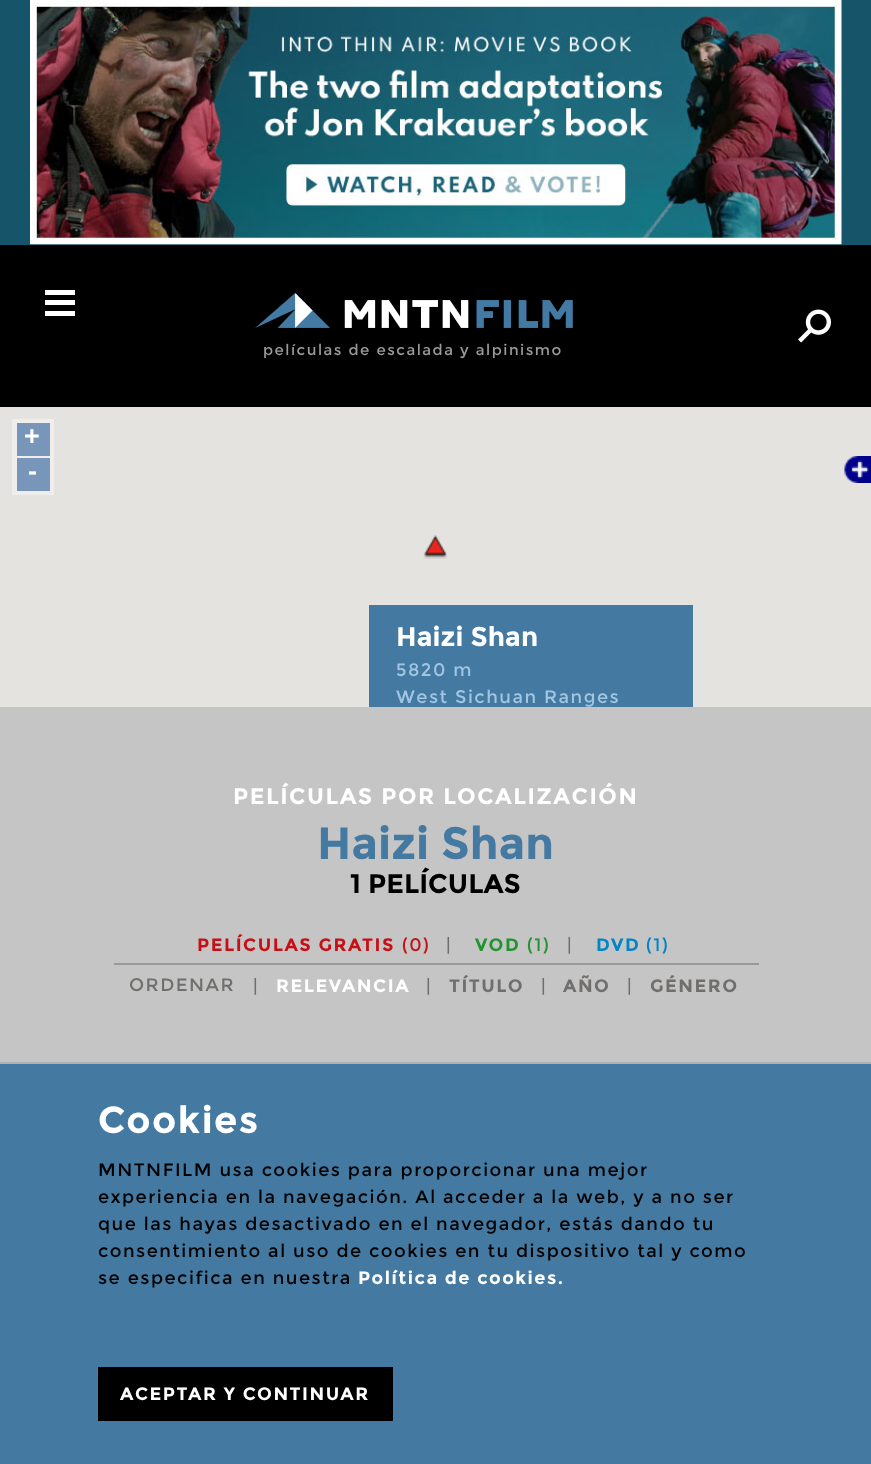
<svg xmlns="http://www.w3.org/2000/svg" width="871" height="1464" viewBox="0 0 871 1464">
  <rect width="100%" height="100%" fill="#000000"/>
  <rect x="0" y="0" width="871" height="245" fill="#165569"/>
  <image x="30" y="0" width="812" height="245" href="img1.png"/>
  <rect x="45" y="290" width="30" height="5" fill="#ffffff"/>
  <rect x="45" y="300" width="30" height="5" fill="#ffffff"/>
  <rect x="45" y="311" width="30" height="5" fill="#ffffff"/>
  <image x="798" y="309" width="33" height="34" href="img2.png"/>
  <image x="255" y="293" width="318" height="35" href="img3.png"/>
  <text x="263" y="355" font-family="Montserrat" font-size="15" letter-spacing="1.5" fill="#9a9a9a">películas de escalada y alpinismo</text>
  <rect x="0" y="707" width="871" height="355" fill="#c5c5c5"/>
  <rect x="0" y="407" width="871" height="300" fill="#e5e3df"/>
  <rect x="12" y="419" width="42" height="76" fill="#efeeec"/>
  <rect x="17" y="423" width="33" height="33" fill="#7895ba"/>
  <text x="24" y="445" font-family="Liberation Sans" font-size="27" font-weight="bold" letter-spacing="1.5" fill="#ffffff">+</text>
  <rect x="17" y="458" width="33" height="33" fill="#7895ba"/>
  <text x="28" y="480" font-family="Liberation Sans" font-size="27" font-weight="bold" letter-spacing="1.5" fill="#ffffff">-</text>
  <image x="844" y="456" width="27" height="27" href="img4.png"/>
  <image x="423" y="535" width="24" height="24" href="img5.png"/>
  <rect x="369" y="605" width="324" height="102" fill="#4479a1"/>
  <text x="396" y="646" font-family="Montserrat" font-size="27" font-weight="bold" fill="#ffffff">Haizi Shan</text>
  <text x="396" y="676" font-family="Montserrat" font-size="18" letter-spacing="1.5" fill="#a0c6e3">5820 m</text>
  <text x="396" y="703" font-family="Montserrat" font-size="18" letter-spacing="1.5" fill="#a0c6e3">West Sichuan Ranges</text>
  <text x="233" y="804" font-family="Montserrat" font-size="22.5" font-weight="bold" letter-spacing="1.5" fill="#ffffff">PELÍCULAS POR LOCALIZACIÓN</text>
  <text x="317" y="859" font-family="Montserrat" font-size="45" font-weight="bold" fill="#4479a1">Haizi Shan</text>
  <text x="350" y="893" font-family="Montserrat" font-size="27" font-weight="bold" fill="#000000">1 PELÍCULAS</text>
  <rect x="114" y="963" width="645" height="2" fill="#9a9a9a"/>
  <text x="197" y="951" font-family="Montserrat" font-size="18" font-weight="bold" letter-spacing="1.5" fill="#c71015">PELÍCULAS GRATIS</text>
  <text x="402" y="951" font-family="Montserrat" font-size="18" letter-spacing="1.5" fill="#c71015">(0)</text>
  <text x="446" y="951" font-family="Montserrat" font-size="18" letter-spacing="1.5" fill="#706f6d">|</text>
  <text x="475" y="951" font-family="Montserrat" font-size="18" font-weight="bold" letter-spacing="1.5" fill="#21942f">VOD</text>
  <text x="527" y="951" font-family="Montserrat" font-size="18" letter-spacing="1.5" fill="#21942f">(1)</text>
  <text x="567" y="951" font-family="Montserrat" font-size="18" letter-spacing="1.5" fill="#706f6d">|</text>
  <text x="596" y="951" font-family="Montserrat" font-size="18" font-weight="bold" letter-spacing="1.5" fill="#0085c6">DVD</text>
  <text x="646" y="951" font-family="Montserrat" font-size="18" letter-spacing="1.5" fill="#0085c6">(1)</text>
  <text x="129" y="991" font-family="Montserrat" font-size="18" letter-spacing="1.5" fill="#706f6d">ORDENAR</text>
  <text x="253" y="992" font-family="Montserrat" font-size="18" letter-spacing="1.5" fill="#706f6d">|</text>
  <text x="276" y="992" font-family="Montserrat" font-size="18" font-weight="bold" letter-spacing="1.5" fill="#ffffff">RELEVANCIA</text>
  <text x="426" y="992" font-family="Montserrat" font-size="18" letter-spacing="1.5" fill="#706f6d">|</text>
  <text x="449" y="992" font-family="Montserrat" font-size="18" font-weight="bold" letter-spacing="1.5" fill="#706f6d">TÍTULO</text>
  <text x="541" y="992" font-family="Montserrat" font-size="18" letter-spacing="1.5" fill="#706f6d">|</text>
  <text x="563" y="992" font-family="Montserrat" font-size="18" font-weight="bold" letter-spacing="1.5" fill="#706f6d">AÑO</text>
  <text x="627" y="992" font-family="Montserrat" font-size="18" letter-spacing="1.5" fill="#706f6d">|</text>
  <text x="650" y="992" font-family="Montserrat" font-size="18" font-weight="bold" letter-spacing="1.5" fill="#706f6d">GÉNERO</text>
  <path d="M0 1062V1064H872V1463V1062Z" fill="#b1b1b1"/>
  <rect x="0" y="1064" width="871" height="400" fill="#4479a1"/>
  <text x="98" y="1133" font-family="Montserrat" font-size="37.5" font-weight="bold" letter-spacing="1.5" fill="#ffffff">Cookies</text>
  <text x="98" y="1176" font-family="Montserrat" font-size="18" letter-spacing="1.5" fill="#000000">MNTNFILM usa cookies para proporcionar una mejor</text>
  <text x="98" y="1203" font-family="Montserrat" font-size="18" letter-spacing="1.5" fill="#000000">experiencia en la navegación. Al acceder a la web, y a no ser</text>
  <text x="98" y="1230" font-family="Montserrat" font-size="18" letter-spacing="1.5" fill="#000000">que las hayas desactivado en el navegador, estás dando tu</text>
  <text x="98" y="1257" font-family="Montserrat" font-size="18" letter-spacing="1.5" fill="#000000">consentimiento al uso de cookies en tu dispositivo tal y como</text>
  <text x="98" y="1284" font-family="Montserrat" font-size="18" letter-spacing="1.5" fill="#000000">se especifica en nuestra</text>
  <text x="358" y="1284" font-family="Montserrat" font-size="18" font-weight="bold" letter-spacing="1.5" fill="#ffffff">Política de cookies.</text>
  <rect x="98" y="1367" width="295" height="54" fill="#000000"/>
  <text x="120" y="1400" font-family="Montserrat" font-size="18" font-weight="bold" letter-spacing="1.5" fill="#ffffff">ACEPTAR Y CONTINUAR</text>
</svg>
